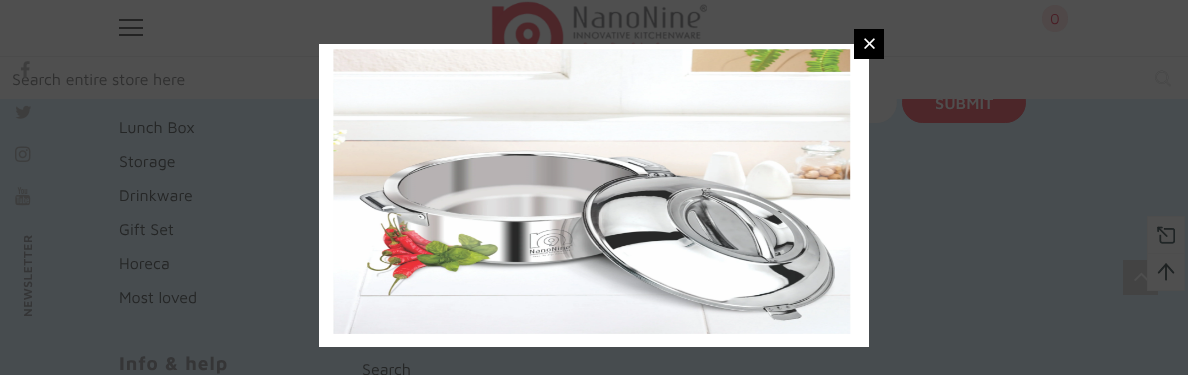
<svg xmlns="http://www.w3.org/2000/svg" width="1188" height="375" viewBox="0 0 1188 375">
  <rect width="100%" height="100%" fill="#474c4f"/>
  <rect x="0" y="0" width="1188" height="56" fill="#4f4f4f"/>
  <image x="491" y="1" width="216" height="43" href="img1.png"/>
  <rect x="1042" y="5" width="26" height="27" rx="13" fill="#4f4848"/>
  <text x="1050" y="24" font-family="Maven Pro" font-size="15" fill="#4a1c24">0</text>
  <rect x="604" y="82" width="293" height="41" rx="20.5" fill="#4f4f4f"/>
  <rect x="902.5" y="82.5" width="123" height="40" rx="20" fill="#4c2629" stroke="#4c2629"/>
  <rect x="0" y="57" width="1188" height="42" fill="#4f4f4f"/>
  <rect x="0" y="56" width="1188" height="1" fill="#4b4b4b"/>
  <text x="12" y="85" font-family="Maven Pro" font-size="16" fill="#2f2f2f">Search entire store here</text>
  <image x="1155" y="70" width="16" height="17" href="img2.png"/>
  <rect x="119" y="19" width="24" height="2" fill="#232323"/>
  <rect x="119" y="27" width="24" height="2" fill="#232323"/>
  <rect x="119" y="34" width="24" height="2" fill="#232323"/>
  <rect x="319" y="44" width="550" height="303" fill="#ffffff"/>
  <rect x="854" y="29" width="30" height="30" fill="#000000"/>
  <image x="864" y="38" width="11" height="11" href="img3.png"/>
  <image x="333" y="49" width="518" height="285" href="img4.png"/>
  <image x="20" y="61" width="10" height="17" href="img5.png"/>
  <image x="15" y="105" width="16" height="14" href="img6.png"/>
  <image x="15" y="146" width="16" height="16" href="img7.png"/>
  <image x="15" y="187" width="16" height="19" href="img8.png"/>
  <text x="32" y="317" transform="rotate(-90 32 317)" font-family="Maven Pro" font-size="12" font-weight="600" letter-spacing="0.5" fill="#353536">NEWSLETTER</text>
  <text x="935" y="109" font-family="Maven Pro" font-size="16" font-weight="600" fill="#4f4f4f">SUBMIT</text>
  <text x="119" y="133" font-family="Maven Pro" font-size="16" fill="#252626">Lunch Box</text>
  <text x="119" y="167" font-family="Maven Pro" font-size="16" fill="#252626">Storage</text>
  <text x="119" y="201" font-family="Maven Pro" font-size="16" fill="#252626">Drinkware</text>
  <text x="119" y="235" font-family="Maven Pro" font-size="16" fill="#252626">Gift Set</text>
  <text x="119" y="269" font-family="Maven Pro" font-size="16" fill="#252626">Horeca</text>
  <text x="119" y="303" font-family="Maven Pro" font-size="16" fill="#252626">Most loved</text>
  <text x="119" y="370" font-family="Maven Pro" font-size="19" font-weight="bold" letter-spacing="1" fill="#353536">Info &amp; help</text>
  <text x="362" y="375" font-family="Maven Pro" font-size="16" fill="#252626">Search</text>
  <rect x="1123" y="260" width="35" height="35" fill="#434343"/>
  <image x="1134" y="272" width="13" height="9" href="img9.png"/>
  <rect x="1148" y="217" width="36" height="73" fill="#4f4f4f"/>
  <rect x="1147" y="216" width="38" height="1" fill="#4d4d4d"/>
  <rect x="1184" y="216" width="1" height="37" fill="#4d4d4d"/>
  <rect x="1147" y="216" width="1" height="37" fill="#4d4d4d"/>
  <image x="1157" y="226" width="18" height="18" href="img10.png"/>
  <rect x="1147.5" y="253.5" width="37" height="37" fill="none" stroke="#4d4d4d"/>
  <image x="1157" y="263" width="18" height="18" href="img11.png"/>
</svg>
